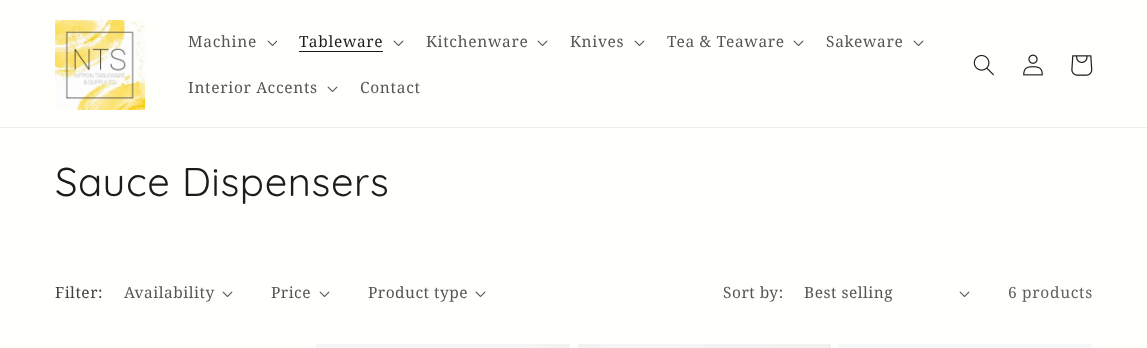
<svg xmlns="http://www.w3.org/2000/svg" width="1147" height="348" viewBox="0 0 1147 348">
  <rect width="100%" height="100%" fill="#fffffb"/>
  <rect x="0" y="127" width="1147" height="1" fill="#edede9"/>
  <image x="55" y="20" width="90" height="90" href="img1.png"/>
  <text x="188" y="47" font-family="Noto Serif" font-size="15.5" letter-spacing="0.7" fill="#555554">Machine</text>
  <image x="267" y="40" width="10" height="6" href="img2.png"/>
  <text x="299" y="47" font-family="Noto Serif" font-size="15.5" letter-spacing="0.7" fill="#1c1c1c">Tableware</text>
  <rect x="299" y="51" width="84" height="1" fill="#1c1c1c"/>
  <image x="393" y="40" width="11" height="6" href="img3.png"/>
  <text x="426" y="47" font-family="Noto Serif" font-size="15.5" letter-spacing="0.7" fill="#555554">Kitchenware</text>
  <image x="537" y="40" width="11" height="6" href="img3.png"/>
  <text x="570" y="47" font-family="Noto Serif" font-size="15.5" letter-spacing="0.7" fill="#555554">Knives</text>
  <image x="634" y="40" width="11" height="6" href="img3.png"/>
  <text x="667" y="47" font-family="Noto Serif" font-size="15.5" letter-spacing="0.7" fill="#555554">Tea &amp; Teaware</text>
  <image x="793" y="40" width="11" height="6" href="img3.png"/>
  <text x="826" y="47" font-family="Noto Serif" font-size="15.5" letter-spacing="0.7" fill="#555554">Sakeware</text>
  <image x="913" y="40" width="11" height="6" href="img3.png"/>
  <text x="188" y="93" font-family="Noto Serif" font-size="15.5" letter-spacing="0.7" fill="#555554">Interior Accents</text>
  <image x="327" y="86" width="11" height="6" href="img3.png"/>
  <text x="360" y="93" font-family="Noto Serif" font-size="15.5" letter-spacing="0.7" fill="#555554">Contact</text>
  <image x="973" y="54" width="21" height="22" href="img4.png"/>
  <image x="1023" y="54" width="20" height="22" href="img5.png"/>
  <image x="1071" y="55" width="22" height="21" href="img6.png"/>
  <text x="55" y="196" font-family="Quicksand" font-size="40" letter-spacing="0.6" fill="#1c1c1c">Sauce Dispensers</text>
  <text x="55" y="298" font-family="Noto Serif" font-size="15.5" letter-spacing="0.5" fill="#3e3e3d">Filter:</text>
  <text x="124" y="298" font-family="Noto Serif" font-size="15.5" letter-spacing="0.5" fill="#555554">Availability</text>
  <image x="222" y="291" width="11" height="6" href="img3.png"/>
  <text x="271" y="298" font-family="Noto Serif" font-size="15.5" letter-spacing="0.5" fill="#555554">Price</text>
  <image x="319" y="291" width="11" height="6" href="img3.png"/>
  <text x="368" y="298" font-family="Noto Serif" font-size="15.5" letter-spacing="0.5" fill="#555554">Product type</text>
  <image x="475" y="291" width="11" height="6" href="img3.png"/>
  <text x="723" y="298" font-family="Noto Serif" font-size="15.5" letter-spacing="0.5" fill="#555554">Sort by:</text>
  <text x="804" y="298" font-family="Noto Serif" font-size="15.5" letter-spacing="0.5" fill="#555554">Best selling</text>
  <image x="959" y="291" width="11" height="6" href="img3.png"/>
  <text x="1008" y="298" font-family="Noto Serif" font-size="15.5" letter-spacing="0.7" fill="#60605f">6 products</text>
  <image x="316" y="344" width="254" height="4" href="img7.png"/>
  <image x="578" y="344" width="253" height="4" href="img8.png"/>
  <rect x="839" y="344" width="253" height="4" fill="#f6f7f7"/>
</svg>
